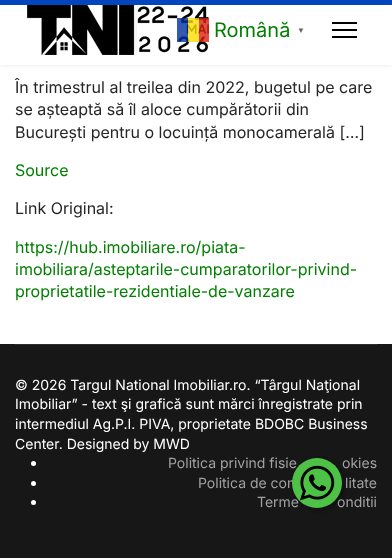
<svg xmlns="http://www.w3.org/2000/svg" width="392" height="558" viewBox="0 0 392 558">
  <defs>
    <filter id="blur1" x="-50%" y="-200%" width="200%" height="500%"><feGaussianBlur stdDeviation="2"/></filter>
    <filter id="blur2" x="-50%" y="-200%" width="200%" height="500%"><feGaussianBlur stdDeviation="3"/></filter>
  </defs>
  <rect width="100%" height="100%" fill="#ffffff"/>
  <rect x="0" y="0" width="392" height="65" fill="#000000" fill-opacity="0.1" filter="url(#blur1)"/>
  <rect x="0" y="0" width="392" height="5" fill="#0345bf"/>
  <rect x="0" y="5" width="392" height="60" fill="#ffffff"/>
  <image x="27" y="5" width="182" height="50" href="img1.png"/>
  <text x="214" y="37" font-family="Inter" font-size="20" fill="#007f00">Română</text>
  <rect x="177" y="18" width="11" height="24" fill="#00319c" fill-opacity="0.8"/>
  <rect x="188" y="18" width="11" height="24" fill="#ffde00" fill-opacity="0.8"/>
  <rect x="199" y="18" width="10" height="24" fill="#de2110" fill-opacity="0.8"/>
  <text x="297" y="33" font-family="Liberation Sans" font-size="8" font-weight="bold" fill="#666666">▼</text>
  <rect x="332" y="22" width="25" height="2" fill="#000000"/>
  <rect x="332" y="29" width="25" height="2" fill="#000000"/>
  <rect x="332" y="36" width="25" height="2" fill="#000000"/>
  <text x="15" y="93" font-family="Inter" font-size="16" fill="#252525">În trimestrul al treilea din 2022, bugetul pe care</text>
  <text x="15" y="115" font-family="Inter" font-size="16" fill="#252525">se așteaptă să îl aloce cumpărătorii din</text>
  <text x="15" y="138" font-family="Inter" font-size="16" fill="#252525">București pentru o locuință monocamerală […]</text>
  <text x="15" y="176" font-family="Inter" font-size="16" fill="#007f00">Source</text>
  <text x="15" y="214" font-family="Inter" font-size="16" fill="#252525">Link Original:</text>
  <text x="15" y="253" font-family="Inter" font-size="16" fill="#007f00">https://hub.imobiliare.ro/piata-</text>
  <text x="15" y="275" font-family="Inter" font-size="16" fill="#007f00">imobiliara/asteptarile-cumparatorilor-privind-</text>
  <text x="15" y="297" font-family="Inter" font-size="16" fill="#007f00">proprietatile-rezidentiale-de-vanzare</text>
  <rect x="0" y="344" width="392" height="214" fill="#171717"/>
  <rect x="15" y="344" width="362" height="1" fill="#2e2e2e"/>
  <text x="15" y="390" font-family="Inter" font-size="14" fill="#ffffff">© 2026 Targul National Imobiliar.ro. “Târgul Naţional</text>
  <text x="15" y="409" font-family="Inter" font-size="14" fill="#ffffff">Imobiliar” - text şi grafică sunt mărci înregistrate prin</text>
  <text x="15" y="429" font-family="Inter" font-size="14" fill="#ffffff">intermediul Ag.P.I. PIVA, proprietate BDOBC Business</text>
  <text x="15" y="449" font-family="Inter" font-size="14" fill="#ffffff">Center. Designed by MWD</text>
  <rect x="294" y="460" width="50" height="50" rx="25" fill="#000000" fill-opacity="0.4" filter="url(#blur2)"/>
  <text x="168" y="468" font-family="Inter" font-size="14" fill="#a2a2a2">Politica privind fisie</text>
  <text x="198" y="488" font-family="Inter" font-size="14" fill="#a2a2a2">Politica de con</text>
  <text x="257" y="507" font-family="Inter" font-size="14" fill="#a2a2a2">Terme</text>
  <text x="337" y="507" font-family="Inter" font-size="14" fill="#a2a2a2">onditii</text>
  <circle cx="317" cy="483" r="25" fill="#4dc247"/>
  <image x="299" y="465" width="36" height="36" href="img2.png"/>
  <circle cx="33.5" cy="463.5" r="2.5" fill="#ffffff"/>
  <text x="342" y="468" font-family="Inter" font-size="14" fill="#a2a2a2">okies</text>
  <circle cx="33.5" cy="483.5" r="2.5" fill="#ffffff"/>
  <text x="345" y="488" font-family="Inter" font-size="14" fill="#a2a2a2">litate</text>
  <circle cx="33.5" cy="502.5" r="2.5" fill="#ffffff"/>
</svg>
